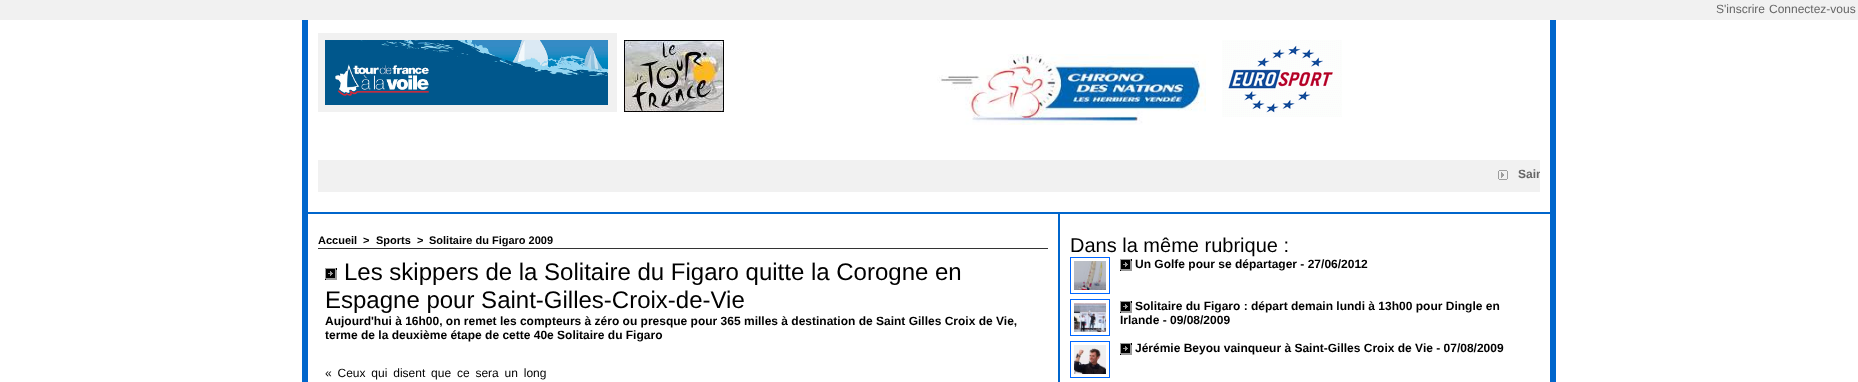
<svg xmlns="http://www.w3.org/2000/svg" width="1858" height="382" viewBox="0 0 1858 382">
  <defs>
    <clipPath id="clip1"><rect x="318" y="167" width="1222" height="14"/></clipPath>
  </defs>
  <rect width="100%" height="100%" fill="#ffffff"/>
  <rect x="304.5" y="-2.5" width="1249" height="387" fill="none" stroke="#0066cc" stroke-width="5"/>
  <rect x="307.5" y="-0.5" width="1243" height="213" fill="none" stroke="#0066cc"/>
  <rect x="0" y="0" width="1858" height="20" fill="#f1f1f1"/>
  <text x="1716" y="13" font-family="Liberation Sans" font-size="12" fill="#666666">S'inscrire</text>
  <text x="1769" y="13" font-family="Liberation Sans" font-size="12" fill="#666666">Connectez-vous</text>
  <rect x="318" y="33" width="299" height="79" fill="#f1f1f1"/>
  <image x="325" y="40" width="283" height="65" href="img1.png"/>
  <image x="624" y="40" width="100" height="72" href="img2.png"/>
  <image x="937" y="54" width="269" height="71" href="img3.png"/>
  <image x="1222" y="40" width="120" height="77" href="img4.png"/>
  <rect x="318" y="160" width="1222" height="32" fill="#f1f1f1"/>
  <image x="1498" y="170" width="10" height="10" href="img5.png"/>
  <g clip-path="url(#clip1)">
    <text x="1518" y="178" font-family="Liberation Sans" font-size="12" font-weight="bold" fill="#666666">Sain</text>
  </g>
  <rect x="307.5" y="213.5" width="751" height="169" fill="none" stroke="#0066cc"/>
  <text x="318" y="244" font-family="Liberation Sans" font-size="11" font-weight="bold" fill="#000000">Accueil</text>
  <text x="363" y="244" font-family="Liberation Sans" font-size="11" font-weight="bold" fill="#000000">&gt;</text>
  <text x="376" y="244" font-family="Liberation Sans" font-size="11" font-weight="bold" fill="#000000">Sports</text>
  <text x="417" y="244" font-family="Liberation Sans" font-size="11" font-weight="bold" fill="#000000">&gt;</text>
  <text x="429" y="244" font-family="Liberation Sans" font-size="11" font-weight="bold" fill="#000000">Solitaire du Figaro 2009</text>
  <rect x="318" y="248" width="730" height="1" fill="#333333"/>
  <image x="325" y="268" width="12" height="12" href="img6.png"/>
  <text x="344" y="280" font-family="Liberation Sans" font-size="24" fill="#000000">Les skippers de la Solitaire du Figaro quitte la Corogne en</text>
  <text x="325" y="308" font-family="Liberation Sans" font-size="24" fill="#000000">Espagne pour Saint-Gilles-Croix-de-Vie</text>
  <text x="325" y="325" font-family="Liberation Sans" font-size="12" font-weight="bold" fill="#000000">Aujourd'hui à 16h00, on remet les compteurs à zéro ou presque pour 365 milles à destination de Saint Gilles Croix de Vie,</text>
  <text x="325" y="339" font-family="Liberation Sans" font-size="12" font-weight="bold" fill="#000000">terme de la deuxième étape de cette 40e Solitaire du Figaro</text>
  <text x="325" y="377" word-spacing="2.5" font-family="Liberation Sans" font-size="12" fill="#000000">« Ceux qui disent que ce sera un long</text>
  <rect x="1059.5" y="213.5" width="491" height="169" fill="none" stroke="#0066cc"/>
  <text x="1070" y="252" font-family="Liberation Sans" font-size="20" fill="#000000">Dans la même rubrique :</text>
  <rect x="1070.5" y="257.5" width="39" height="36" fill="none" stroke="#0066ff"/>
  <image x="1074" y="261" width="32" height="29" href="img7.png"/>
  <image x="1120" y="259" width="12" height="12" href="img6.png"/>
  <text x="1135" y="268" font-family="Liberation Sans" font-size="12" font-weight="bold" fill="#000000">Un Golfe pour se départager - 27/06/2012</text>
  <rect x="1070.5" y="299.5" width="39" height="36" fill="none" stroke="#0066ff"/>
  <image x="1074" y="303" width="32" height="29" href="img8.png"/>
  <image x="1120" y="301" width="12" height="12" href="img6.png"/>
  <text x="1135" y="310" font-family="Liberation Sans" font-size="12" font-weight="bold" fill="#000000">Solitaire du Figaro : départ demain lundi à 13h00 pour Dingle en</text>
  <text x="1120" y="324" font-family="Liberation Sans" font-size="12" font-weight="bold" fill="#000000">Irlande - 09/08/2009</text>
  <rect x="1070.5" y="341.5" width="39" height="36" fill="none" stroke="#0066ff"/>
  <image x="1074" y="345" width="32" height="29" href="img9.png"/>
  <image x="1120" y="343" width="12" height="12" href="img6.png"/>
  <text x="1135" y="352" font-family="Liberation Sans" font-size="12" font-weight="bold" fill="#000000">Jérémie Beyou vainqueur à Saint-Gilles Croix de Vie - 07/08/2009</text>
</svg>
